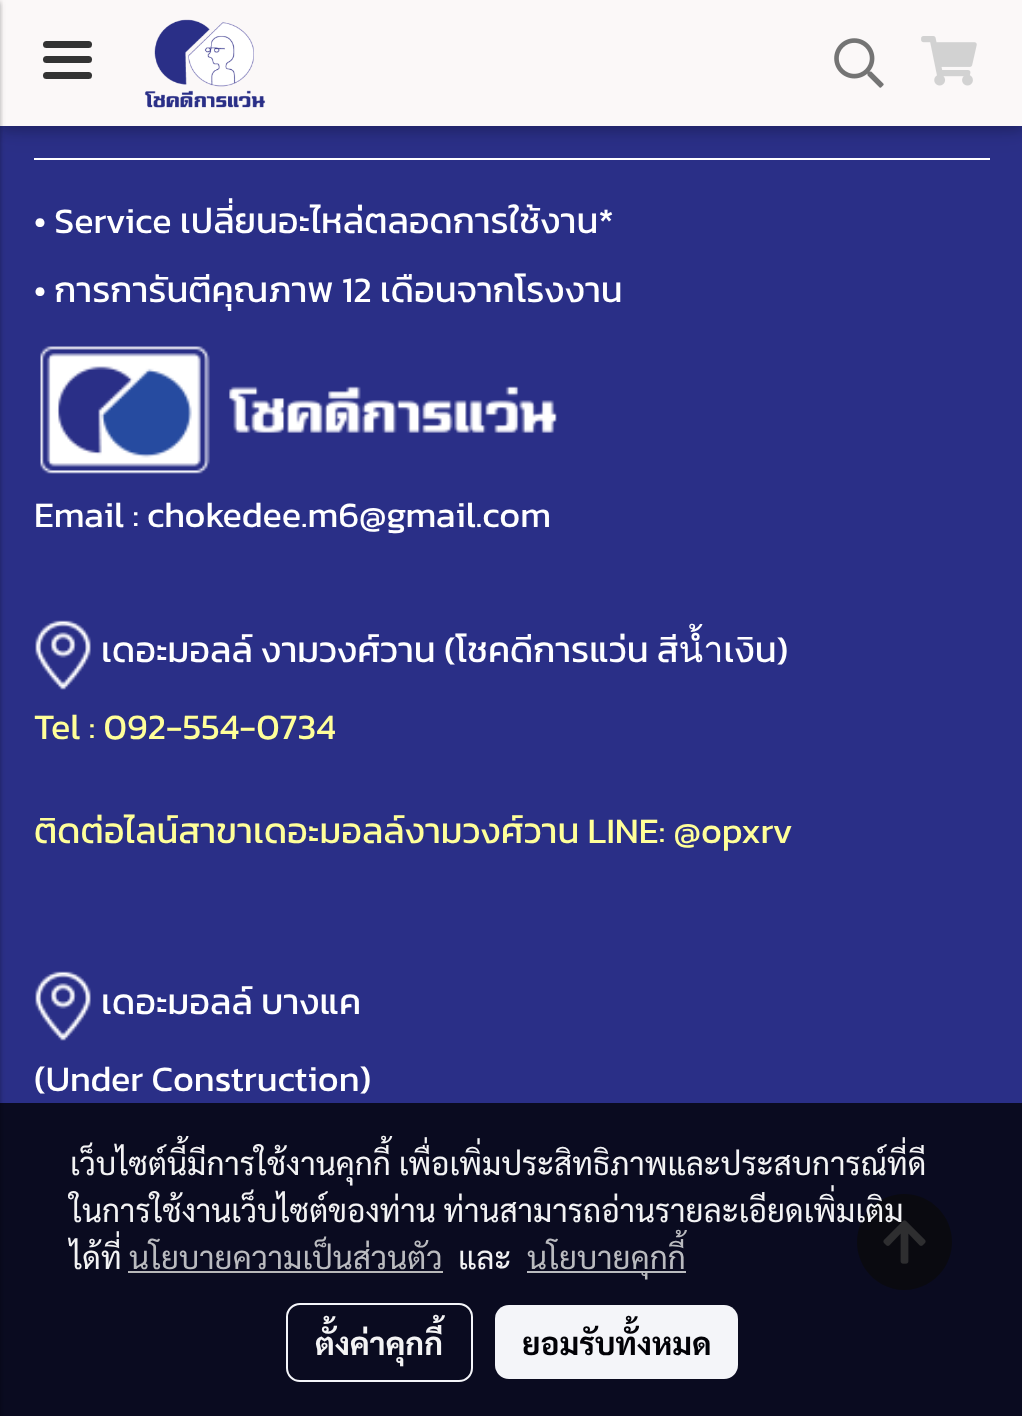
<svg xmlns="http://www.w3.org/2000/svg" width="1022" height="1416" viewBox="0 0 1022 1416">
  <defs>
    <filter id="blur1" x="-50%" y="-200%" width="200%" height="500%"><feGaussianBlur stdDeviation="11"/></filter>
    <filter id="blur2" x="-50%" y="-200%" width="200%" height="500%"><feGaussianBlur stdDeviation="5.5"/></filter>
    <filter id="blur3" x="-50%" y="-200%" width="200%" height="500%"><feGaussianBlur stdDeviation="2"/></filter>
    <filter id="blur4" x="-50%" y="-200%" width="200%" height="500%"><feGaussianBlur stdDeviation="3.5"/></filter>
  </defs>
  <rect width="100%" height="100%" fill="#2a2f87"/>
  <rect x="34" y="158" width="956" height="2" fill="#ffffff"/>
  <rect x="0" y="5" width="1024" height="126" fill="#000000" fill-opacity="0.12" filter="url(#blur1)"/>
  <rect x="0" y="5" width="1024" height="126" fill="#000000" fill-opacity="0.16" filter="url(#blur2)"/>
  <rect x="0" y="0" width="1022" height="126" fill="#fbf8f8"/>
  <rect x="-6" y="2" width="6" height="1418" fill="#000000" fill-opacity="0.24" filter="url(#blur3)"/>
  <rect x="-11" y="2" width="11" height="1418" fill="#000000" fill-opacity="0.12" filter="url(#blur4)"/>
  <rect x="43" y="56" width="49" height="7" rx="3.5" fill="#333333"/>
  <rect x="43" y="41" width="49" height="7" rx="3.5" fill="#333333"/>
  <rect x="43" y="72" width="49" height="7" rx="3.5" fill="#333333"/>
  <image x="144" y="19" width="122" height="89" href="img1.png"/>
  <image x="834" y="38" width="50" height="50" href="img2.png"/>
  <image x="921" y="36" width="56" height="50" href="img3.png"/>
  <text x="34" y="233" font-family="Kanit" font-size="36" fill="#ffffff">• Service เปลี่ยนอะไหล่ตลอดการใช้งาน*</text>
  <text x="34" y="302" font-family="Kanit" font-size="36" fill="#ffffff">• การการันตีคุณภาพ 12 เดือนจากโรงงาน</text>
  <image x="40" y="346" width="517" height="128" href="img4.png"/>
  <text x="34" y="527" font-family="Kanit" font-size="36" fill="#ffffff">Email : chokedee.m6@gmail.com</text>
  <image x="35" y="620" width="56" height="70" href="img5.png"/>
  <text x="101" y="662" font-family="Kanit" font-size="36" fill="#ffffff">เดอะมอลล์ งามวงศ์วาน (โชคดีการแว่น สีน้ำเงิน)</text>
  <text x="34" y="739" font-family="Kanit" font-size="36" fill="#ffff99">Tel : 092-554-0734</text>
  <text x="34" y="843" font-family="Kanit" font-size="36" fill="#ffff99">ติดต่อไลน์สาขาเดอะมอลล์งามวงศ์วาน LINE: @opxrv</text>
  <image x="35" y="971" width="56" height="70" href="img6.png"/>
  <text x="101" y="1014" font-family="Kanit" font-size="36" fill="#ffffff">เดอะมอลล์ บางแค</text>
  <text x="34" y="1091" font-family="Kanit" font-size="36" fill="#ffffff">(Under Construction)</text>
  <path d="M904 1194C878 1194 857 1216 857 1242C857 1268 878 1290 904 1290C931 1290 952 1268 952 1242C952 1216 931 1194 904 1194Z" fill="#2b2c46"/>
  <image x="883" y="1220" width="43" height="44" href="img7.png"/>
  <rect x="0" y="1103" width="1022" height="313" fill="#000000" fill-opacity="0.76"/>
  <text x="70" y="1175" font-family="Sarabun" font-size="31.5" fill="#f3f3f4">เว็บไซต์นี้มีการใช้งานคุกกี้ เพื่อเพิ่มประสิทธิภาพและประสบการณ์ที่ดี</text>
  <text x="70" y="1222" font-family="Sarabun" font-size="31.5" fill="#f3f3f4">ในการใช้งานเว็บไซต์ของท่าน ท่านสามารถอ่านรายละเอียดเพิ่มเติม</text>
  <text x="70" y="1269" font-family="Sarabun" font-size="31.5" fill="#f3f3f4">ได้ที่</text>
  <text x="129" y="1269" font-family="Sarabun" font-size="31.5" fill="#babbbf">นโยบายความเป็นส่วนตัว</text>
  <rect x="128" y="1271" width="315" height="2" fill="#c2c2c2" fill-opacity="0.95"/>
  <text x="458" y="1269" font-family="Sarabun" font-size="31.5" fill="#f3f3f4">และ</text>
  <rect x="527" y="1271" width="159" height="2" fill="#babbbf"/>
  <text x="527" y="1269" font-family="Sarabun" font-size="31.5" fill="#babbbf">นโยบายคุกกี้</text>
  <rect x="287" y="1304" width="185" height="77" rx="13" fill="none" stroke="#f4f5f9" stroke-width="2"/>
  <text x="315" y="1355" font-family="Sarabun" font-size="31.5" font-weight="bold" fill="#f3f3f4">ตั้งค่าคุกกี้</text>
  <rect x="495" y="1305" width="243" height="74" rx="14" fill="#f4f5f9"/>
  <text x="522" y="1355" font-family="Sarabun" font-size="31.5" font-weight="bold" fill="#020207">ยอมรับทั้งหมด</text>
</svg>
